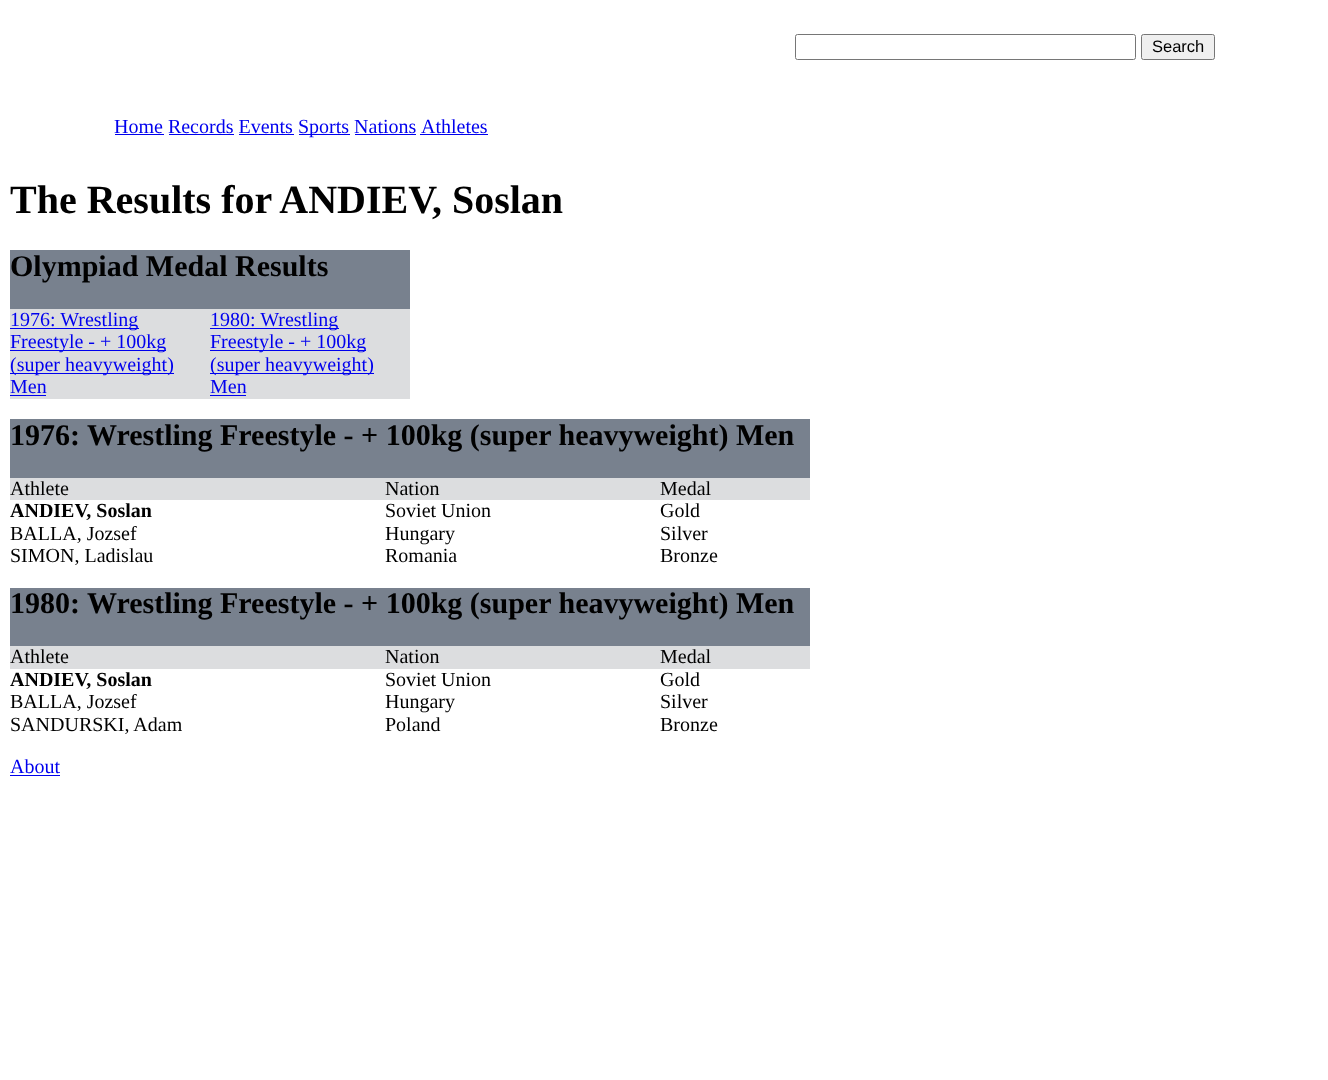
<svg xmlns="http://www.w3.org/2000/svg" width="1328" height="1080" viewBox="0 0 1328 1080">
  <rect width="100%" height="100%" fill="#ffffff"/>
  <rect x="795.5" y="34.5" width="340" height="25" rx="2" fill="none" stroke="#767676"/>
  <rect x="1141.5" y="34.5" width="73" height="25" rx="2" fill="#efefef" stroke="#767676"/>
  <text x="1152" y="52" font-family="Liberation Sans" font-size="16.5" fill="#000000">Search</text>
  <text x="114" y="133" font-family="Liberation Serif" font-size="20" fill="#0000ee">Home Records Events</text>
  <rect x="115" y="134" width="49" height="1" fill="#0000ee"/>
  <rect x="299" y="134" width="51" height="1" fill="#0000ee"/>
  <text x="298" y="133" font-family="Liberation Serif" font-size="20" fill="#0000ee">Sports Nations</text>
  <text x="421" y="133" font-family="Liberation Serif" font-size="20" fill="#0000ee">Athletes</text>
  <rect x="420" y="134" width="68" height="1" fill="#0000ee"/>
  <rect x="169" y="134" width="65" height="1" fill="#0000ee"/>
  <rect x="239" y="134" width="55" height="1" fill="#0000ee"/>
  <rect x="355" y="134" width="61" height="1" fill="#0000ee"/>
  <text x="10" y="213" font-family="Liberation Serif" font-size="40" font-weight="bold" fill="#000000">The Results for ANDIEV, Soslan</text>
  <rect x="10" y="250" width="400" height="59" fill="#78818e"/>
  <text x="10" y="276" font-family="Liberation Serif" font-size="30" font-weight="bold" fill="#000000">Olympiad Medal Results</text>
  <rect x="10" y="309" width="400" height="90" fill="#dcdddf"/>
  <rect x="10" y="328" width="129" height="1" fill="#0000ee"/>
  <text x="10" y="326" font-family="Liberation Serif" font-size="20" fill="#0000ee">1976: Wrestling</text>
  <rect x="10" y="350" width="156" height="1" fill="#0000ee"/>
  <text x="10" y="348" font-family="Liberation Serif" font-size="20" fill="#0000ee">Freestyle - + 100kg</text>
  <rect x="10" y="373" width="164" height="1" fill="#0000ee"/>
  <text x="10" y="371" font-family="Liberation Serif" font-size="20" fill="#0000ee">(super heavyweight)</text>
  <text x="10" y="393" font-family="Liberation Serif" font-size="20" fill="#0000ee">Men</text>
  <rect x="10" y="395" width="36" height="1" fill="#0000ee"/>
  <rect x="210" y="328" width="129" height="1" fill="#0000ee"/>
  <text x="210" y="326" font-family="Liberation Serif" font-size="20" fill="#0000ee">1980: Wrestling</text>
  <rect x="210" y="350" width="156" height="1" fill="#0000ee"/>
  <text x="210" y="348" font-family="Liberation Serif" font-size="20" fill="#0000ee">Freestyle - + 100kg</text>
  <rect x="210" y="373" width="164" height="1" fill="#0000ee"/>
  <text x="210" y="371" font-family="Liberation Serif" font-size="20" fill="#0000ee">(super heavyweight)</text>
  <text x="210" y="393" font-family="Liberation Serif" font-size="20" fill="#0000ee">Men</text>
  <rect x="210" y="395" width="36" height="1" fill="#0000ee"/>
  <rect x="10" y="419" width="800" height="59" fill="#78818e"/>
  <text x="10" y="445" font-family="Liberation Serif" font-size="30" font-weight="bold" fill="#000000">1976: Wrestling Freestyle - + 100kg (super heavyweight) Men</text>
  <rect x="10" y="478" width="800" height="22" fill="#dcdddf"/>
  <text x="10" y="495" font-family="Liberation Serif" font-size="20" fill="#000000">Athlete</text>
  <text x="385" y="495" font-family="Liberation Serif" font-size="20" fill="#000000">Nation</text>
  <text x="660" y="495" font-family="Liberation Serif" font-size="20" fill="#000000">Medal</text>
  <text x="10" y="517" font-family="Liberation Serif" font-size="20" font-weight="bold" fill="#000000">ANDIEV, Soslan</text>
  <text x="385" y="517" font-family="Liberation Serif" font-size="20" fill="#000000">Soviet Union</text>
  <text x="660" y="517" font-family="Liberation Serif" font-size="20" fill="#000000">Gold</text>
  <text x="10" y="540" font-family="Liberation Serif" font-size="20" fill="#000000">BALLA, Jozsef</text>
  <text x="385" y="540" font-family="Liberation Serif" font-size="20" fill="#000000">Hungary</text>
  <text x="660" y="540" font-family="Liberation Serif" font-size="20" fill="#000000">Silver</text>
  <text x="10" y="562" font-family="Liberation Serif" font-size="20" fill="#000000">SIMON, Ladislau</text>
  <text x="385" y="562" font-family="Liberation Serif" font-size="20" fill="#000000">Romania</text>
  <text x="660" y="562" font-family="Liberation Serif" font-size="20" fill="#000000">Bronze</text>
  <rect x="10" y="588" width="800" height="58" fill="#78818e"/>
  <text x="10" y="613" font-family="Liberation Serif" font-size="30" font-weight="bold" fill="#000000">1980: Wrestling Freestyle - + 100kg (super heavyweight) Men</text>
  <rect x="10" y="646" width="800" height="23" fill="#dcdddf"/>
  <text x="10" y="663" font-family="Liberation Serif" font-size="20" fill="#000000">Athlete</text>
  <text x="385" y="663" font-family="Liberation Serif" font-size="20" fill="#000000">Nation</text>
  <text x="660" y="663" font-family="Liberation Serif" font-size="20" fill="#000000">Medal</text>
  <text x="10" y="686" font-family="Liberation Serif" font-size="20" font-weight="bold" fill="#000000">ANDIEV, Soslan</text>
  <text x="385" y="686" font-family="Liberation Serif" font-size="20" fill="#000000">Soviet Union</text>
  <text x="660" y="686" font-family="Liberation Serif" font-size="20" fill="#000000">Gold</text>
  <text x="10" y="708" font-family="Liberation Serif" font-size="20" fill="#000000">BALLA, Jozsef</text>
  <text x="385" y="708" font-family="Liberation Serif" font-size="20" fill="#000000">Hungary</text>
  <text x="660" y="708" font-family="Liberation Serif" font-size="20" fill="#000000">Silver</text>
  <text x="10" y="731" font-family="Liberation Serif" font-size="20" fill="#000000">SANDURSKI, Adam</text>
  <text x="385" y="731" font-family="Liberation Serif" font-size="20" fill="#000000">Poland</text>
  <text x="660" y="731" font-family="Liberation Serif" font-size="20" fill="#000000">Bronze</text>
  <text x="10" y="773" font-family="Liberation Serif" font-size="20" fill="#0000ee">About</text>
  <rect x="10" y="775" width="50" height="1" fill="#0000ee"/>
</svg>
